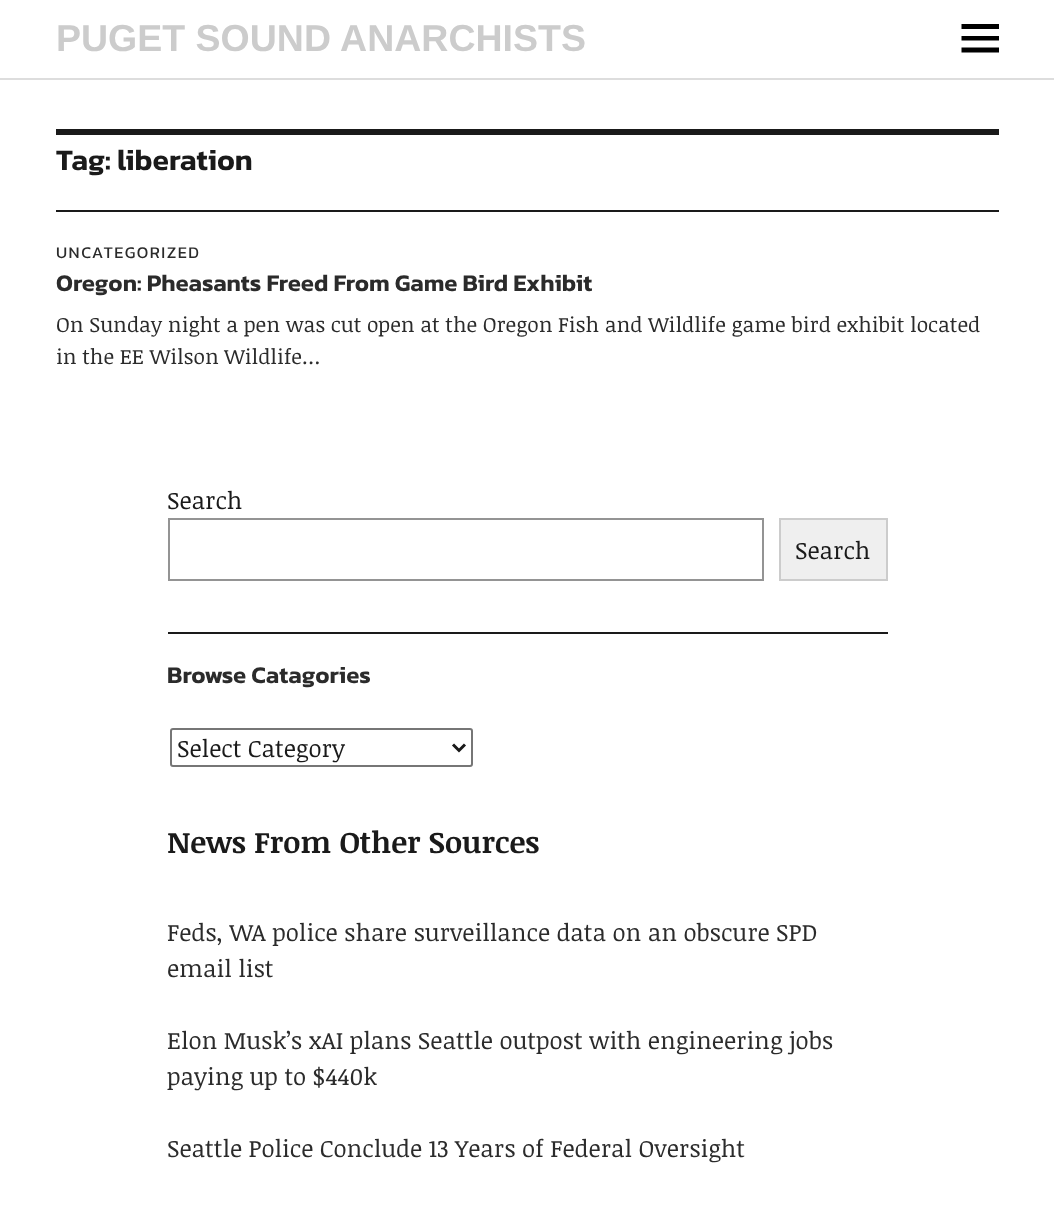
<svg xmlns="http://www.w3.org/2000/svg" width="1054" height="1205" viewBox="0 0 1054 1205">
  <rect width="100%" height="100%" fill="#ffffff"/>
  <rect x="0" y="78" width="1054" height="2" fill="#dddddd"/>
  <text x="56" y="51" font-family="Liberation Sans" font-size="37.5" font-weight="bold" fill="#cccccc">PUGET SOUND ANARCHISTS</text>
  <path d="M961.5 52.5V47.5H999V52.5ZM961.5 24H999V29H961.5ZM961.5 40.5V36H999V40.5Z" fill="#000000"/>
  <rect x="56" y="129" width="943" height="6" fill="#1a1a1a"/>
  <text x="56" y="170" font-family="Kanit" font-size="30" font-weight="600" fill="#1a1a1a">Tag: liberation</text>
  <rect x="56" y="210" width="943" height="2" fill="#1a1a1a"/>
  <text x="56" y="258" font-family="Kanit" font-size="16.5" letter-spacing="1.5" fill="#2b2b2b">UNCATEGORIZED</text>
  <text x="56" y="291" font-family="Kanit" font-size="24" font-weight="600" fill="#2b2b2b">Oregon: Pheasants Freed From Game Bird Exhibit</text>
  <text x="56" y="332" font-family="Noticia Text" font-size="21" fill="#2b2b2b">On Sunday night a pen was cut open at the Oregon Fish and Wildlife game bird exhibit located</text>
  <text x="56" y="364" font-family="Noticia Text" font-size="21" fill="#2b2b2b">in the EE Wilson Wildlife…</text>
  <text x="167" y="509" font-family="Noticia Text" font-size="24" fill="#1a1a1a">Search</text>
  <rect x="169" y="519" width="594" height="61" fill="none" stroke="#949494" stroke-width="2"/>
  <rect x="780" y="519" width="107" height="61" fill="#efefef" stroke="#cccccc" stroke-width="2"/>
  <text x="795" y="559" font-family="Noticia Text" font-size="24" fill="#1a1a1a">Search</text>
  <rect x="168" y="632" width="720" height="2" fill="#1a1a1a"/>
  <text x="167" y="683" font-family="Kanit" font-size="24" font-weight="600" fill="#2b2b2b">Browse Catagories</text>
  <rect x="171" y="729" width="301" height="37" rx="2" fill="none" stroke="#767676" stroke-width="2"/>
  <path d="M453 744.5L459 750.5L465 744.5" fill="none" stroke="#1a1a1a" stroke-width="3"/>
  <text x="177" y="757" font-family="Noticia Text" font-size="24" fill="#1a1a1a">Select Category</text>
  <text x="167" y="853" font-family="Noticia Text" font-size="30" font-weight="bold" fill="#1a1a1a">News From Other Sources</text>
  <text x="167" y="941" font-family="Noticia Text" font-size="24" fill="#2b2b2b">Feds, WA police share surveillance data on an obscure SPD</text>
  <text x="167" y="977" font-family="Noticia Text" font-size="24" fill="#2b2b2b">email list</text>
  <text x="167" y="1049" font-family="Noticia Text" font-size="24" fill="#2b2b2b">Elon Musk’s xAI plans Seattle outpost with engineering jobs</text>
  <text x="167" y="1085" font-family="Noticia Text" font-size="24" fill="#2b2b2b">paying up to $440k</text>
  <text x="167" y="1157" font-family="Noticia Text" font-size="24" fill="#2b2b2b">Seattle Police Conclude 13 Years of Federal Oversight</text>
</svg>
